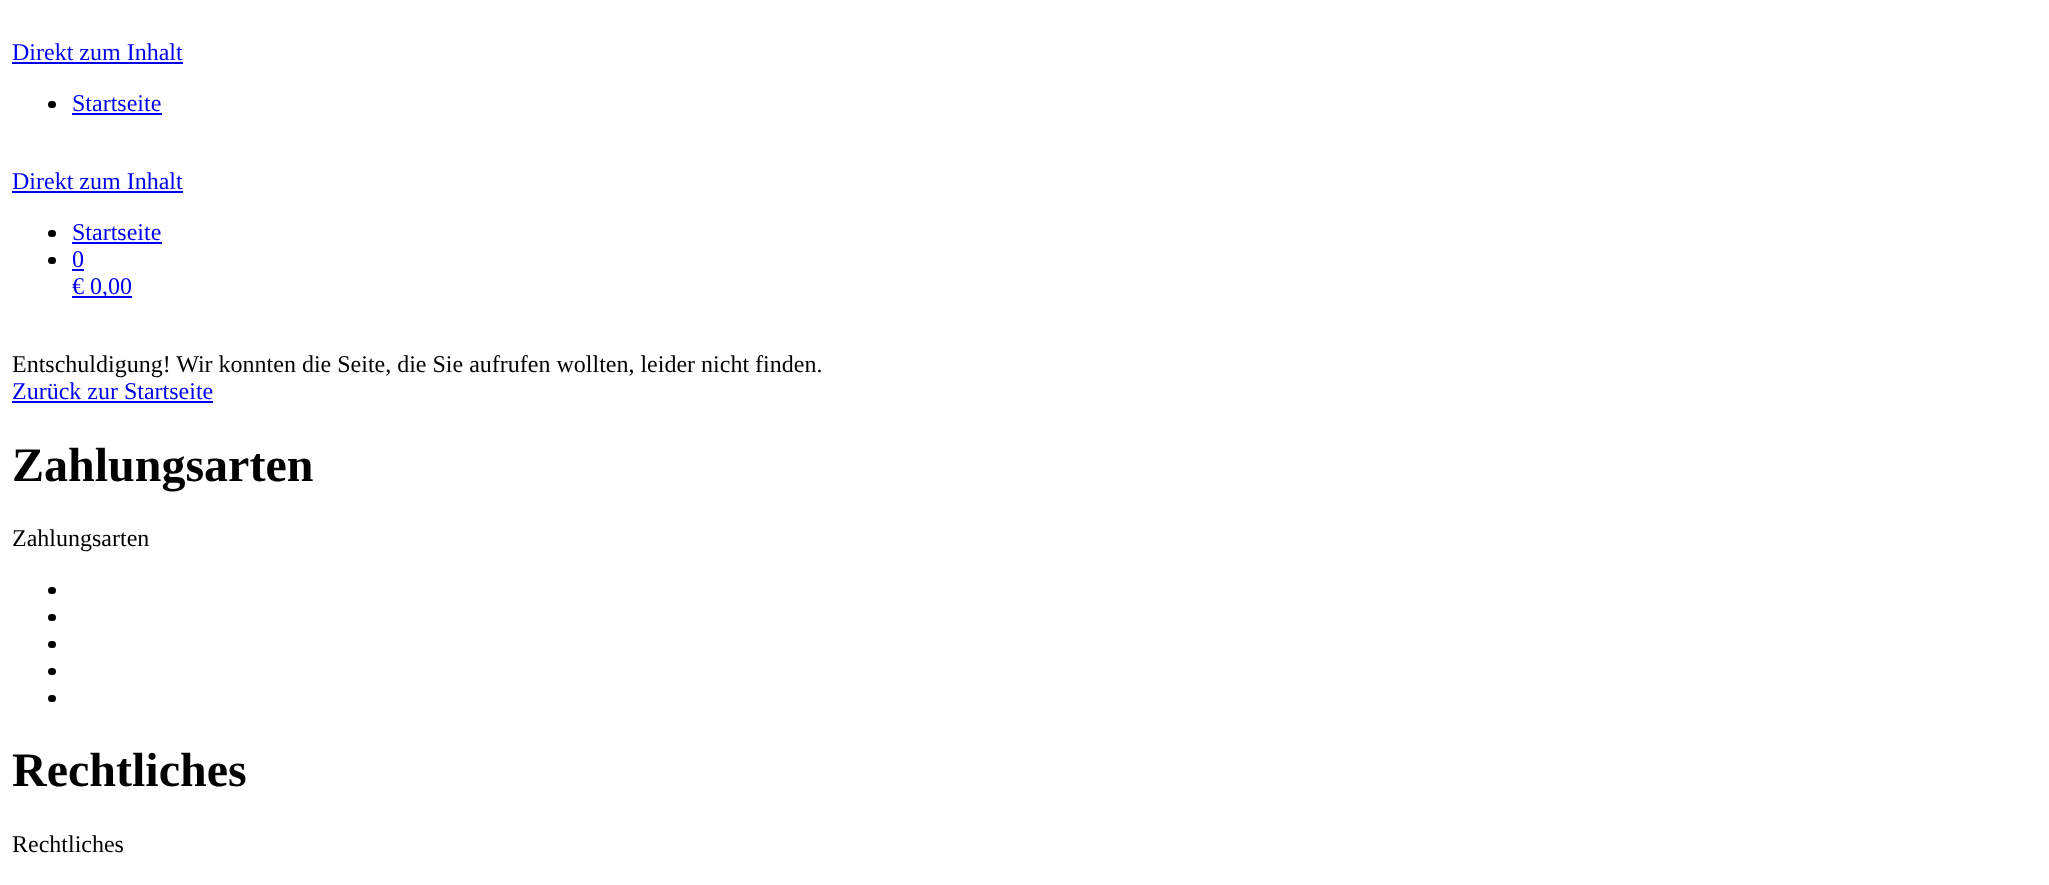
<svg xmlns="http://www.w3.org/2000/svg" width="2049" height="885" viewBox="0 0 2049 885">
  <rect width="100%" height="100%" fill="#ffffff"/>
  <text x="12" y="60" font-family="Liberation Serif" font-size="24" fill="#0000ee">Direkt zum Inhalt</text>
  <rect x="12" y="62" width="171" height="2" fill="#0000ee"/>
  <rect x="48" y="101" width="8" height="7" rx="3.5" fill="#000000"/>
  <text x="72" y="111" font-family="Liberation Serif" font-size="24" fill="#0000ee">Startseite</text>
  <rect x="72" y="113" width="90" height="2" fill="#0000ee"/>
  <text x="12" y="189" font-family="Liberation Serif" font-size="24" fill="#0000ee">Direkt zum Inhalt</text>
  <rect x="12" y="191" width="171" height="2" fill="#0000ee"/>
  <rect x="48" y="230" width="8" height="7" rx="3.5" fill="#000000"/>
  <text x="72" y="240" font-family="Liberation Serif" font-size="24" fill="#0000ee">Startseite</text>
  <rect x="72" y="242" width="90" height="2" fill="#0000ee"/>
  <rect x="48" y="257" width="8" height="7" rx="3.5" fill="#000000"/>
  <text x="72" y="267" font-family="Liberation Serif" font-size="24" fill="#0000ee">0</text>
  <rect x="72" y="269" width="12" height="2" fill="#0000ee"/>
  <rect x="72" y="296" width="60" height="2" fill="#0000ee"/>
  <text x="72" y="294" font-family="Liberation Serif" font-size="24" fill="#0000ee">€ 0,00</text>
  <text x="12" y="372" font-family="Liberation Serif" font-size="24" fill="#000000">Entschuldigung! Wir konnten die Seite, die Sie aufrufen wollten, leider nicht finden.</text>
  <text x="12" y="399" font-family="Liberation Serif" font-size="24" fill="#0000ee">Zurück zur Startseite</text>
  <rect x="12" y="401" width="201" height="2" fill="#0000ee"/>
  <text x="12" y="481" font-family="Liberation Serif" font-size="48" font-weight="bold" fill="#000000">Zahlungsarten</text>
  <text x="12" y="546" font-family="Liberation Serif" font-size="24" fill="#000000">Zahlungsarten</text>
  <rect x="48" y="587" width="8" height="7" rx="3.5" fill="#000000"/>
  <rect x="48" y="614" width="8" height="7" rx="3.5" fill="#000000"/>
  <rect x="48" y="641" width="8" height="7" rx="3.5" fill="#000000"/>
  <rect x="48" y="668" width="8" height="7" rx="3.5" fill="#000000"/>
  <rect x="48" y="695" width="8" height="7" rx="3.5" fill="#000000"/>
  <text x="12" y="786" font-family="Liberation Serif" font-size="48" font-weight="bold" fill="#000000">Rechtliches</text>
  <text x="12" y="852" font-family="Liberation Serif" font-size="24" fill="#000000">Rechtliches</text>
</svg>
